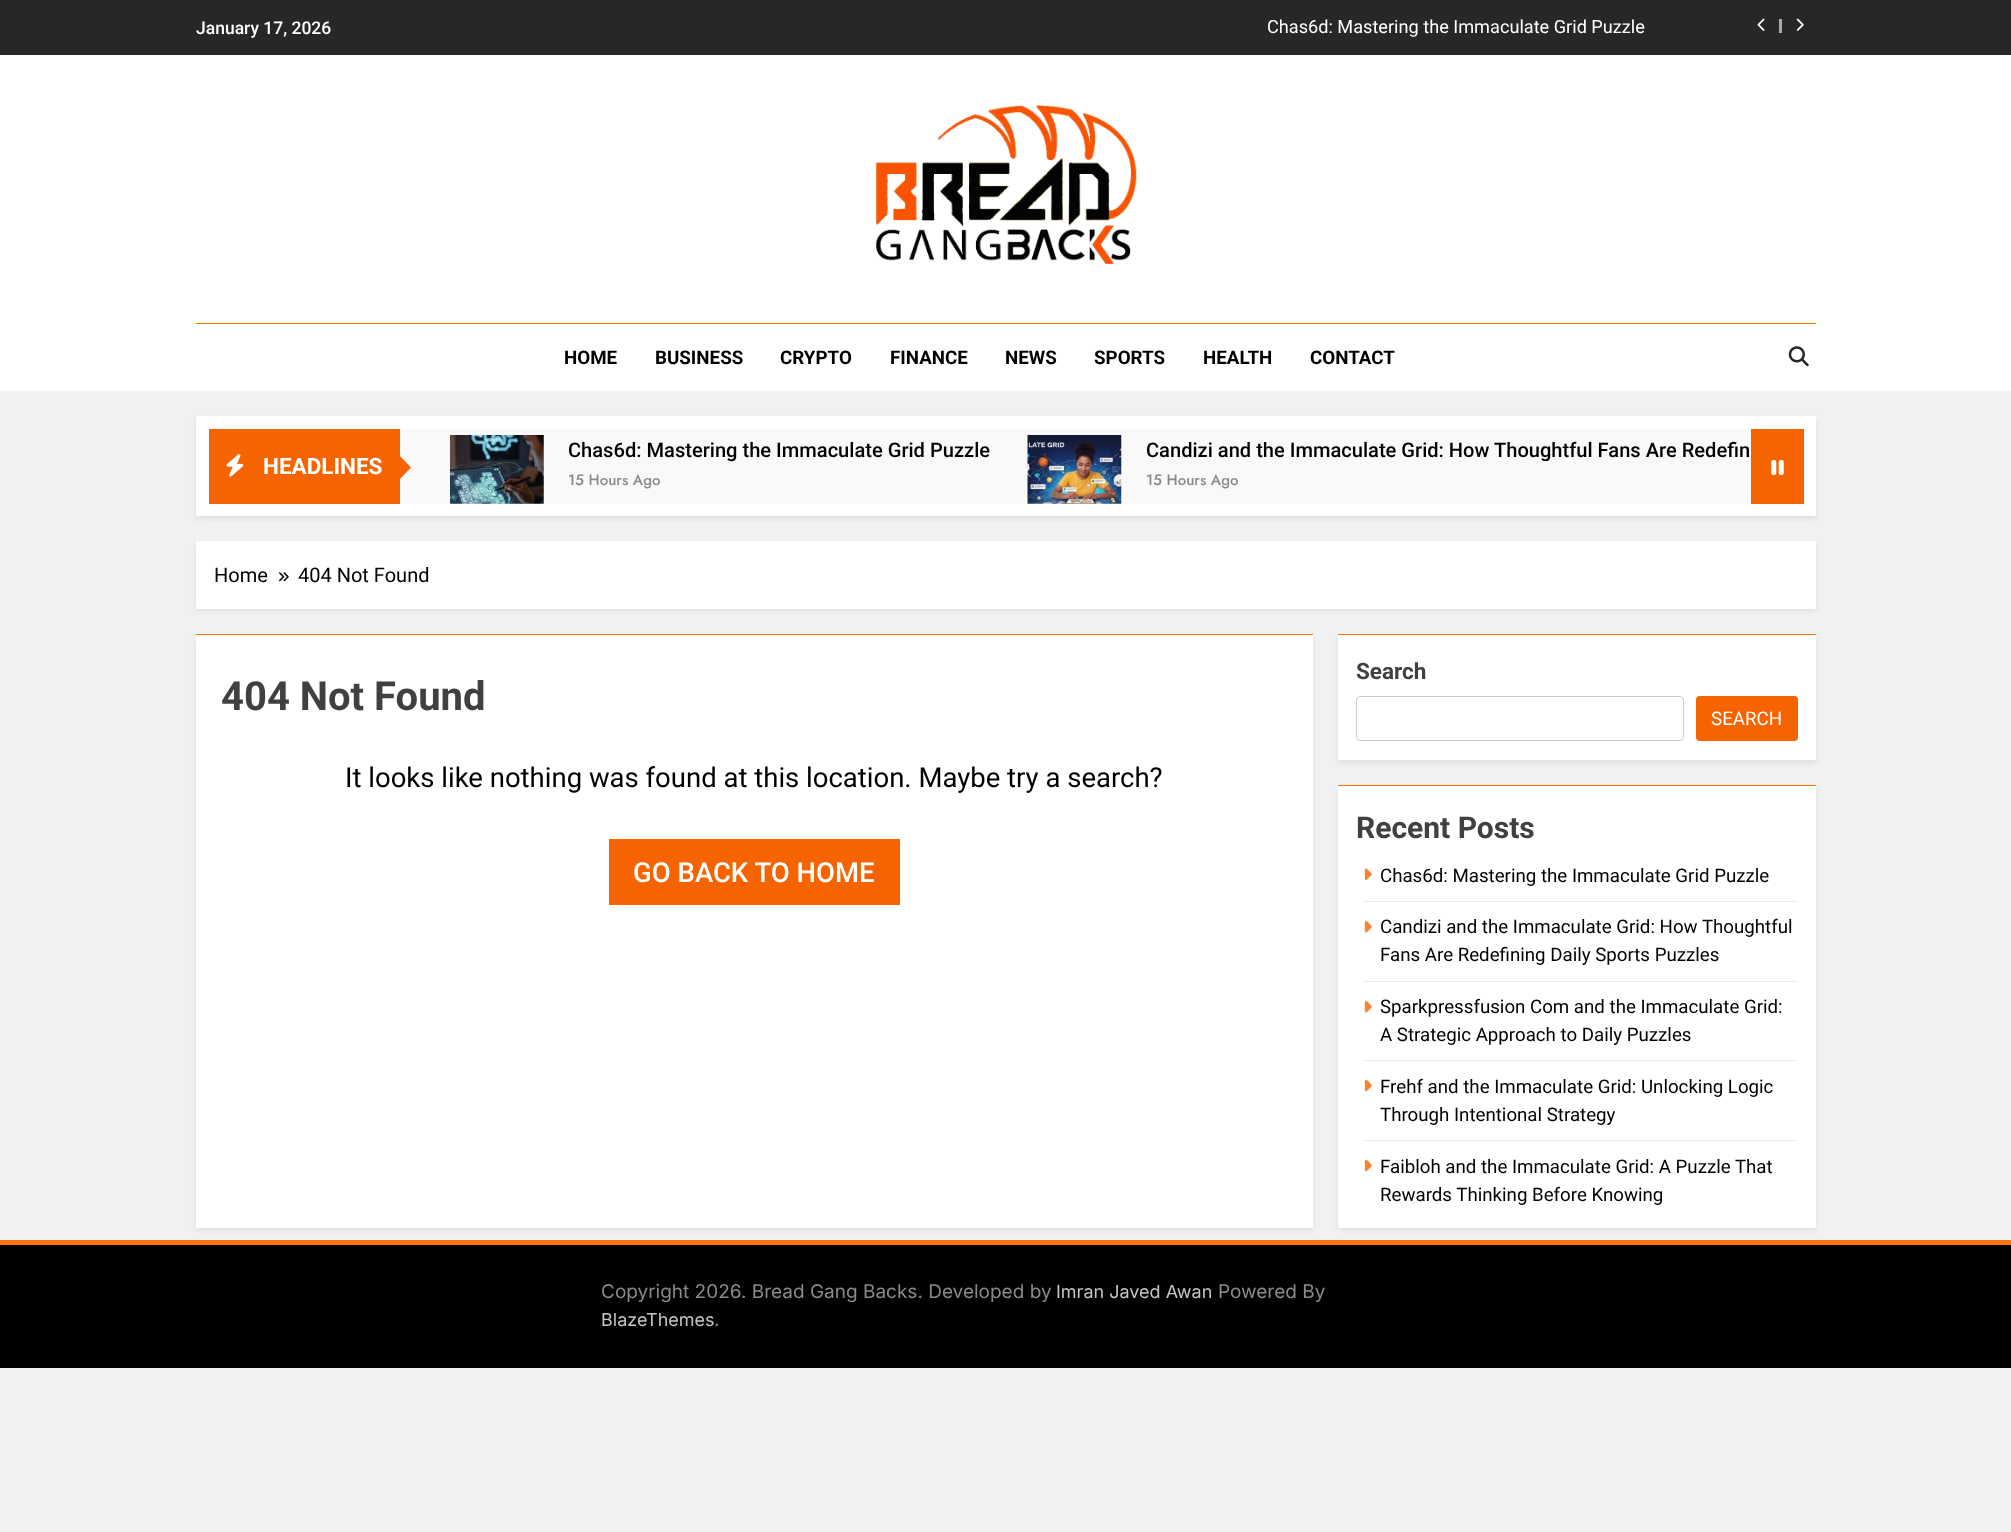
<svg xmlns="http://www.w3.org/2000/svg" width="2011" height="1532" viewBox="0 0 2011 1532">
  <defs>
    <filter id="blur1" x="-50%" y="-200%" width="200%" height="500%"><feGaussianBlur stdDeviation="2.5"/></filter>
    <clipPath id="clip1"><rect x="1146" y="438" width="605" height="23"/></clipPath>
  </defs>
  <rect width="100%" height="100%" fill="#f0f1f2"/>
  <rect x="0" y="0" width="2011" height="55" fill="#27272a"/>
  <text x="196" y="34" font-family="Roboto" font-size="17.5" font-weight="500" fill="#ffffff">January 17, 2026</text>
  <text x="1267" y="33" font-family="Roboto" font-size="18.15" fill="#ffffff">Chas6d: Mastering the Immaculate Grid Puzzle</text>
  <image x="1757" y="18" width="8" height="13" href="img1.png"/>
  <rect x="1779" y="19" width="3" height="14" fill="#a9a9aa"/>
  <image x="1796" y="18" width="8" height="13" href="img2.png"/>
  <rect x="0" y="55" width="2011" height="336" fill="#ffffff"/>
  <image x="876" y="105" width="261" height="159" href="img3.png"/>
  <rect x="196" y="323" width="1620" height="1" fill="#ed7900"/>
  <text x="564" y="364" font-family="Roboto" font-size="18.75" font-weight="bold" fill="#000000">HOME</text>
  <text x="655" y="364" font-family="Roboto" font-size="18.75" font-weight="bold" fill="#000000">BUSINESS</text>
  <text x="780" y="364" font-family="Roboto" font-size="18.75" font-weight="bold" fill="#000000">CRYPTO</text>
  <text x="890" y="364" font-family="Roboto" font-size="18.75" font-weight="bold" fill="#000000">FINANCE</text>
  <text x="1005" y="364" font-family="Roboto" font-size="18.75" font-weight="bold" fill="#000000">NEWS</text>
  <text x="1094" y="364" font-family="Roboto" font-size="18.75" font-weight="bold" fill="#000000">SPORTS</text>
  <text x="1203" y="364" font-family="Roboto" font-size="18.75" font-weight="bold" fill="#000000">HEALTH</text>
  <text x="1310" y="364" font-family="Roboto" font-size="18.75" font-weight="bold" fill="#000000">CONTACT</text>
  <image x="1788" y="346" width="21" height="21" href="img4.png"/>
  <rect x="196" y="419" width="1620" height="100" fill="#000000" fill-opacity="0.08" filter="url(#blur1)"/>
  <rect x="196" y="416" width="1620" height="100" fill="#ffffff"/>
  <rect x="209" y="429" width="191" height="75" fill="#f56400"/>
  <image x="226" y="454" width="18" height="23" href="img5.png"/>
  <text x="263" y="474" font-family="Roboto" font-size="22.5" font-weight="bold" fill="#ffffff">HEADLINES</text>
  <rect x="400" y="429" width="1351" height="75" fill="#f9f9f9"/>
  <path d="M399 480V455L411 467.5Z" fill="#f56400"/>
  <image x="450" y="435" width="94" height="69" href="img6.png"/>
  <text x="568" y="457" font-family="Roboto" font-size="20.1" font-weight="500" fill="#000000">Chas6d: Mastering the Immaculate Grid Puzzle</text>
  <text x="568" y="485" font-family="Jost" font-size="15" font-weight="500" fill="#8a8a8c">15 Hours Ago</text>
  <image x="1027" y="435" width="95" height="69" href="img7.png"/>
  <g clip-path="url(#clip1)">
    <text x="1146" y="457" font-family="Roboto" font-size="20.1" font-weight="500" fill="#000000">Candizi and the Immaculate Grid: How Thoughtful Fans Are Redefin</text>
  </g>
  <text x="1146" y="485" font-family="Jost" font-size="15" font-weight="500" fill="#8a8a8c">15 Hours Ago</text>
  <rect x="1751" y="429" width="53" height="75" fill="#f56400"/>
  <image x="1771" y="460" width="13" height="15" href="img8.png"/>
  <rect x="196" y="544" width="1620" height="67" fill="#000000" fill-opacity="0.08" filter="url(#blur1)"/>
  <rect x="196" y="541" width="1620" height="68" fill="#ffffff"/>
  <text x="214" y="582" font-family="Roboto" font-size="20" fill="#000000">Home</text>
  <image x="279" y="572" width="10" height="10" href="img9.png"/>
  <text x="298" y="582" font-family="Roboto" font-size="20" fill="#000000">404 Not Found</text>
  <rect x="196" y="638" width="1117" height="592" fill="#000000" fill-opacity="0.08" filter="url(#blur1)"/>
  <rect x="196" y="635" width="1117" height="593" fill="#ffffff"/>
  <rect x="196" y="634" width="1117" height="1" fill="#ff7300"/>
  <text x="221" y="710" font-family="Roboto" font-size="40" font-weight="bold" fill="#404040">404 Not Found</text>
  <text x="345" y="787" font-family="Roboto" font-size="27.5" fill="#000000">It looks like nothing was found at this location. Maybe try a search?</text>
  <rect x="609" y="839" width="291" height="66" fill="#f56400"/>
  <text x="633" y="882" font-family="Roboto" font-size="27.5" font-weight="500" fill="#ffffff">GO BACK TO HOME</text>
  <rect x="1338" y="638" width="478" height="125" fill="#000000" fill-opacity="0.08" filter="url(#blur1)"/>
  <rect x="1338" y="635" width="478" height="125" fill="#ffffff"/>
  <rect x="1338" y="634" width="478" height="1" fill="#ff7300"/>
  <text x="1356" y="679" font-family="Roboto" font-size="22.5" font-weight="bold" fill="#404040">Search</text>
  <rect x="1356.5" y="696.5" width="327" height="44" rx="3.5" fill="none" stroke="#cccccc"/>
  <rect x="1696" y="696" width="102" height="45" rx="4" fill="#f56400"/>
  <text x="1711" y="725" font-family="Roboto" font-size="18.75" fill="#ffffff">SEARCH</text>
  <rect x="1338" y="789" width="478" height="441" fill="#000000" fill-opacity="0.08" filter="url(#blur1)"/>
  <rect x="1338" y="786" width="478" height="442" fill="#ffffff"/>
  <rect x="1338" y="785" width="478" height="1" fill="#ff7300"/>
  <text x="1356" y="838" font-family="Roboto" font-size="30" font-weight="bold" fill="#404040">Recent Posts</text>
  <rect x="1363" y="901" width="435" height="1" fill="#eaeaea"/>
  <image x="1364" y="868" width="8" height="12" href="img10.png"/>
  <text x="1380" y="882" font-family="Roboto" font-size="18.7" fill="#000000">Chas6d: Mastering the Immaculate Grid Puzzle</text>
  <rect x="1363" y="981" width="435" height="1" fill="#eaeaea"/>
  <image x="1364" y="920" width="8" height="13" href="img11.png"/>
  <text x="1380" y="933" font-family="Roboto" font-size="18.7" fill="#000000">Candizi and the Immaculate Grid: How Thoughtful</text>
  <text x="1380" y="961" font-family="Roboto" font-size="18.7" fill="#000000">Fans Are Redefining Daily Sports Puzzles</text>
  <rect x="1363" y="1060" width="435" height="1" fill="#eaeaea"/>
  <image x="1364" y="1000" width="8" height="13" href="img11.png"/>
  <text x="1380" y="1013" font-family="Roboto" font-size="18.7" fill="#000000">Sparkpressfusion Com and the Immaculate Grid:</text>
  <text x="1380" y="1041" font-family="Roboto" font-size="18.7" fill="#000000">A Strategic Approach to Daily Puzzles</text>
  <rect x="1363" y="1140" width="435" height="1" fill="#eaeaea"/>
  <image x="1364" y="1079" width="8" height="13" href="img12.png"/>
  <text x="1380" y="1093" font-family="Roboto" font-size="18.7" fill="#000000">Frehf and the Immaculate Grid: Unlocking Logic</text>
  <text x="1380" y="1121" font-family="Roboto" font-size="18.7" fill="#000000">Through Intentional Strategy</text>
  <image x="1364" y="1159" width="8" height="13" href="img12.png"/>
  <text x="1380" y="1173" font-family="Roboto" font-size="18.7" fill="#000000">Faibloh and the Immaculate Grid: A Puzzle That</text>
  <text x="1380" y="1201" font-family="Roboto" font-size="18.7" fill="#000000">Rewards Thinking Before Knowing</text>
  <rect x="0" y="1240" width="2011" height="5" fill="#ff7300"/>
  <rect x="0" y="1245" width="2011" height="123" fill="#000000"/>
  <text x="601" y="1298" font-family="Inter" font-size="19" fill="#8a8a8c">Copyright 2026. Bread Gang Backs. Developed by</text>
  <text x="1056" y="1298" font-family="Inter" font-size="18" fill="#c5c5c5">Imran Javed Awan</text>
  <text x="1218" y="1298" font-family="Inter" font-size="19" fill="#8a8a8c">Powered By</text>
  <text x="601" y="1326" font-family="Inter" font-size="18" fill="#c5c5c5">BlazeThemes</text>
  <text x="714" y="1326" font-family="Inter" font-size="19" fill="#8a8a8c">.</text>
</svg>
